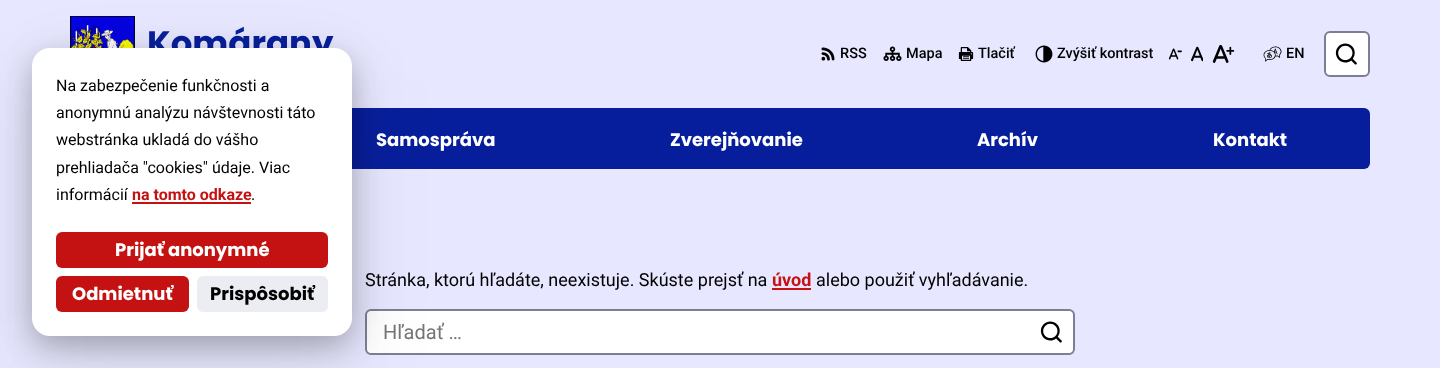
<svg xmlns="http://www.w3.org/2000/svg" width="1440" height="368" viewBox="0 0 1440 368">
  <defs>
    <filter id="blur1" x="-50%" y="-200%" width="200%" height="500%"><feGaussianBlur stdDeviation="45"/></filter>
    <filter id="blur2" x="-50%" y="-200%" width="200%" height="500%"><feGaussianBlur stdDeviation="30"/></filter>
    <filter id="blur3" x="-50%" y="-200%" width="200%" height="500%"><feGaussianBlur stdDeviation="15"/></filter>
  </defs>
  <rect width="100%" height="100%" fill="#e7e7ff"/>
  <image x="70" y="16" width="65" height="32" href="img1.png"/>
  <text x="147" y="55" font-family="Poppins" font-size="34" font-weight="bold" fill="#071e9c">Komárany</text>
  <image x="821" y="47" width="14" height="14" href="img2.png"/>
  <text x="840" y="58" font-family="Roboto" font-size="14.5" font-weight="500" fill="#000000">RSS</text>
  <image x="883" y="46" width="19" height="15" href="img3.png"/>
  <text x="906" y="58" font-family="Roboto" font-size="14.5" font-weight="500" fill="#000000">Mapa</text>
  <image x="958" y="47" width="16" height="14" href="img4.png"/>
  <text x="978" y="58" font-family="Roboto" font-size="14.5" font-weight="500" fill="#000000">Tlačiť</text>
  <image x="1035" y="45" width="18" height="18" href="img5.png"/>
  <text x="1057" y="58" font-family="Roboto" font-size="14.5" font-weight="500" fill="#000000">Zvýšiť kontrast</text>
  <image x="1168" y="48" width="14" height="12" href="img6.png"/>
  <image x="1191" y="46" width="12" height="16" href="img7.png"/>
  <image x="1212" y="45" width="23" height="18" href="img8.png"/>
  <image x="1263" y="46" width="19" height="16" href="img9.png"/>
  <text x="1286" y="58" font-family="Roboto" font-size="14.5" font-weight="500" fill="#000000">EN</text>
  <rect x="1325" y="32" width="44" height="44" rx="5" fill="#ffffff" stroke="#7d7d96" stroke-width="2"/>
  <image x="1335" y="43" width="22" height="22" href="img10.png"/>
  <rect x="70" y="108" width="1300" height="61" rx="6" fill="#071e9c"/>
  <text x="376" y="146" font-family="Poppins" font-size="18" font-weight="bold" fill="#ffffff">Samospráva</text>
  <text x="670" y="146" font-family="Poppins" font-size="18" font-weight="bold" fill="#ffffff">Zverejňovanie</text>
  <text x="977" y="146" font-family="Poppins" font-size="18" font-weight="bold" fill="#ffffff">Archív</text>
  <text x="1213" y="146" font-family="Poppins" font-size="18" font-weight="bold" fill="#ffffff">Kontakt</text>
  <text x="365" y="286" font-family="Roboto" font-size="18" fill="#000000">Stránka, ktorú hľadáte, neexistuje. Skúste prejsť na</text>
  <text x="772" y="286" font-family="Roboto" font-size="18" font-weight="bold" fill="#c41212">úvod</text>
  <rect x="772" y="288" width="39" height="2" fill="#c41212"/>
  <text x="816" y="286" font-family="Roboto" font-size="18" fill="#000000">alebo použiť vyhľadávanie.</text>
  <rect x="366" y="310" width="708" height="44" rx="5" fill="#ffffff" stroke="#7d7d96" stroke-width="2"/>
  <text x="383" y="339" font-family="Roboto" font-size="20" fill="#757575">Hľadať …</text>
  <image x="1040" y="321" width="22" height="22" href="img10.png"/>
  <rect x="32" y="78" width="320" height="288" rx="18" fill="#000000" fill-opacity="0.05" filter="url(#blur1)"/>
  <rect x="32" y="68" width="320" height="288" rx="18" fill="#000000" fill-opacity="0.05" filter="url(#blur2)"/>
  <rect x="32" y="58" width="320" height="288" rx="18" fill="#000000" fill-opacity="0.25" filter="url(#blur3)"/>
  <rect x="32" y="48" width="320" height="288" rx="18" fill="#ffffff"/>
  <text x="56" y="91" font-family="Roboto" font-size="16" fill="#000000">Na zabezpečenie funkčnosti a</text>
  <text x="56" y="118" font-family="Roboto" font-size="16" fill="#000000">anonymnú analýzu návštevnosti táto</text>
  <text x="56" y="145" font-family="Roboto" font-size="16" fill="#000000">webstránka ukladá do vášho</text>
  <text x="56" y="173" font-family="Roboto" font-size="16" fill="#000000">prehliadača "cookies" údaje. Viac</text>
  <text x="56" y="200" font-family="Roboto" font-size="16" fill="#000000">informácií</text>
  <text x="132" y="200" font-family="Roboto" font-size="16" font-weight="bold" fill="#c41212">na tomto odkaze</text>
  <rect x="132" y="202" width="119" height="2" fill="#c41212"/>
  <text x="251" y="200" font-family="Roboto" font-size="16" fill="#000000">.</text>
  <rect x="56" y="232" width="272" height="36" rx="6" fill="#c41212"/>
  <text x="115" y="256" font-family="Poppins" font-size="18" font-weight="bold" fill="#ffffff">Prijať anonymné</text>
  <rect x="56" y="276" width="133" height="36" rx="6" fill="#c41212"/>
  <text x="72" y="300" font-family="Poppins" font-size="18" font-weight="bold" fill="#ffffff">Odmietnuť</text>
  <rect x="197" y="276" width="131" height="36" rx="6" fill="#ececf3"/>
  <text x="210" y="300" font-family="Poppins" font-size="18" font-weight="bold" fill="#000000">Prispôsobiť</text>
</svg>
